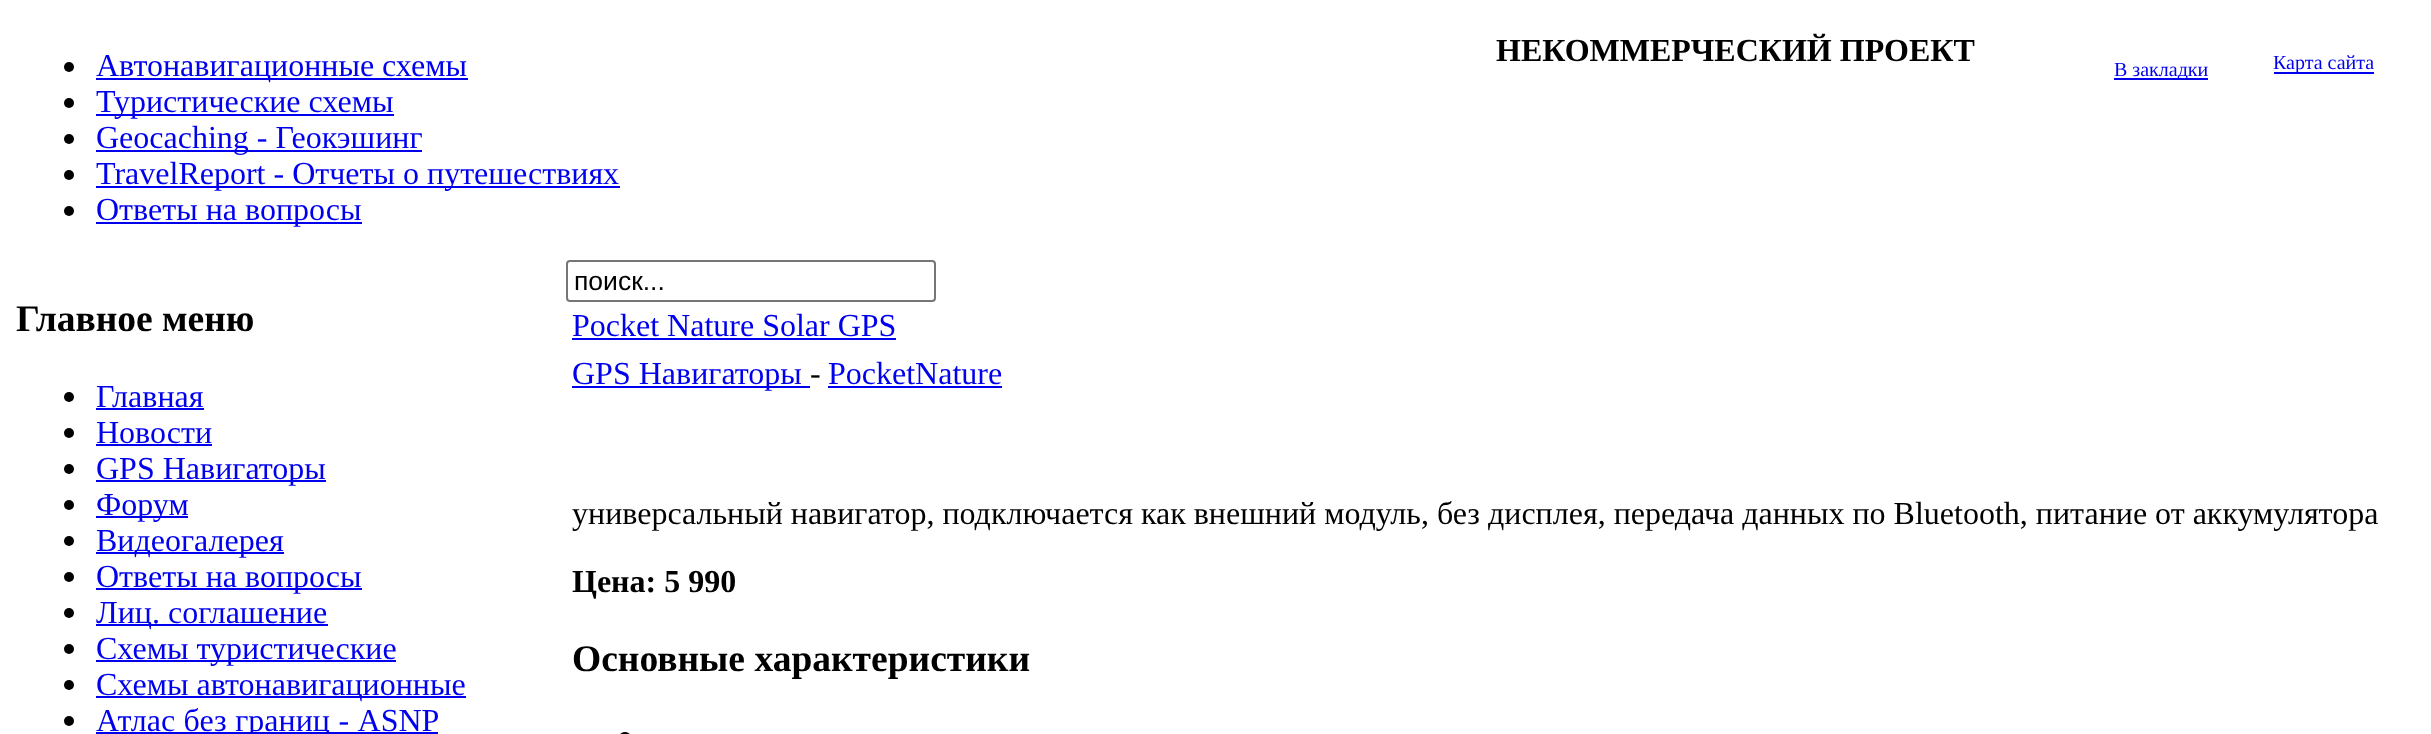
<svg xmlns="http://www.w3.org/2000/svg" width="2431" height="734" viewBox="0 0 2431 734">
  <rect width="100%" height="100%" fill="#ffffff"/>
  <circle cx="69" cy="67" r="5" fill="#000000"/>
  <rect x="96" y="78" width="372" height="2" fill="#0000ee"/>
  <text x="96" y="76" font-family="Liberation Serif" font-size="32" fill="#0000ee">Автонавигационные схемы</text>
  <circle cx="69" cy="103" r="5" fill="#000000"/>
  <rect x="96" y="114" width="298" height="2" fill="#0000ee"/>
  <text x="96" y="112" font-family="Liberation Serif" font-size="32" fill="#0000ee">Туристические схемы</text>
  <circle cx="69" cy="139" r="5" fill="#000000"/>
  <rect x="96" y="150" width="326" height="2" fill="#0000ee"/>
  <text x="96" y="148" font-family="Liberation Serif" font-size="32" fill="#0000ee">Geocaching - Геокэшинг</text>
  <circle cx="69" cy="175" r="5" fill="#000000"/>
  <rect x="96" y="186" width="524" height="2" fill="#0000ee"/>
  <text x="96" y="184" font-family="Liberation Serif" font-size="32" fill="#0000ee">TravelReport - Отчеты о путешествиях</text>
  <circle cx="69" cy="211" r="5" fill="#000000"/>
  <rect x="96" y="222" width="266" height="2" fill="#0000ee"/>
  <text x="96" y="220" font-family="Liberation Serif" font-size="32" fill="#0000ee">Ответы на вопросы</text>
  <text x="1496" y="61" font-family="Liberation Serif" font-size="32" font-weight="bold" fill="#000000">НЕКОММЕРЧЕСКИЙ ПРОЕКТ</text>
  <rect x="2114" y="78" width="94" height="2" fill="#0000ee"/>
  <text x="2114" y="76" font-family="Liberation Serif" font-size="20" fill="#0000ee">В закладки</text>
  <rect x="2274" y="72" width="100" height="2" fill="#0000ee"/>
  <text x="2273" y="69" font-family="Liberation Serif" font-size="20" fill="#0000ee">Карта сайта</text>
  <text x="16" y="331" font-family="Liberation Serif" font-size="37.5" font-weight="bold" fill="#000000">Главное меню</text>
  <circle cx="69" cy="397" r="5" fill="#000000"/>
  <text x="96" y="407" font-family="Liberation Serif" font-size="32" fill="#0000ee">Главная</text>
  <rect x="96" y="408" width="108" height="2" fill="#0000ee"/>
  <circle cx="69" cy="433" r="5" fill="#000000"/>
  <text x="96" y="443" font-family="Liberation Serif" font-size="32" fill="#0000ee">Новости</text>
  <rect x="96" y="444" width="116" height="2" fill="#0000ee"/>
  <circle cx="69" cy="469" r="5" fill="#000000"/>
  <rect x="96" y="480" width="230" height="2" fill="#0000ee"/>
  <text x="96" y="479" font-family="Liberation Serif" font-size="32" fill="#0000ee">GPS Навигаторы</text>
  <circle cx="69" cy="505" r="5" fill="#000000"/>
  <rect x="96" y="516" width="92" height="2" fill="#0000ee"/>
  <text x="96" y="515" font-family="Liberation Serif" font-size="32" fill="#0000ee">Форум</text>
  <circle cx="69" cy="541" r="5" fill="#000000"/>
  <rect x="96" y="552" width="188" height="2" fill="#0000ee"/>
  <text x="96" y="551" font-family="Liberation Serif" font-size="32" fill="#0000ee">Видеогалерея</text>
  <circle cx="69" cy="577" r="5" fill="#000000"/>
  <rect x="96" y="588" width="266" height="2" fill="#0000ee"/>
  <text x="96" y="587" font-family="Liberation Serif" font-size="32" fill="#0000ee">Ответы на вопросы</text>
  <circle cx="69" cy="613" r="5" fill="#000000"/>
  <rect x="96" y="624" width="232" height="2" fill="#0000ee"/>
  <text x="96" y="623" font-family="Liberation Serif" font-size="32" fill="#0000ee">Лиц. соглашение</text>
  <circle cx="69" cy="649" r="5" fill="#000000"/>
  <rect x="96" y="660" width="300" height="2" fill="#0000ee"/>
  <text x="96" y="659" font-family="Liberation Serif" font-size="32" fill="#0000ee">Схемы туристические</text>
  <circle cx="69" cy="685" r="5" fill="#000000"/>
  <rect x="96" y="696" width="370" height="2" fill="#0000ee"/>
  <text x="96" y="695" font-family="Liberation Serif" font-size="32" fill="#0000ee">Схемы автонавигационные</text>
  <circle cx="69" cy="721" r="5" fill="#000000"/>
  <rect x="96" y="732" width="342" height="2" fill="#0000ee"/>
  <text x="96" y="731" word-spacing="0.5" font-family="Liberation Serif" font-size="32" fill="#0000ee">Атлас без границ - ASNP</text>
  <rect x="567" y="261" width="368" height="40" rx="3" fill="none" stroke="#767676" stroke-width="2"/>
  <text x="574" y="290" font-family="Liberation Sans" font-size="26.5" fill="#000000">поиск...</text>
  <text x="572" y="336" font-family="Liberation Serif" font-size="32" fill="#0000ee">Pocket Nature Solar GPS</text>
  <rect x="572" y="338" width="324" height="2" fill="#0000ee"/>
  <rect x="572" y="386" width="238" height="2" fill="#0000ee"/>
  <text x="572" y="384" font-family="Liberation Serif" font-size="32" fill="#0000ee">GPS Навигаторы</text>
  <text x="810" y="384" font-family="Liberation Serif" font-size="32" fill="#000000">-</text>
  <text x="828" y="384" font-family="Liberation Serif" font-size="32" fill="#0000ee">PocketNature</text>
  <rect x="828" y="386" width="174" height="2" fill="#0000ee"/>
  <text x="572" y="524" font-family="Liberation Serif" font-size="32" fill="#000000">универсальный навигатор, подключается как внешний модуль, без дисплея, передача данных по Bluetooth, питание от аккумулятора</text>
  <text x="572" y="592" font-family="Liberation Serif" font-size="32" font-weight="bold" fill="#000000">Цена: 5 990</text>
  <text x="572" y="671" font-family="Liberation Serif" font-size="37.5" font-weight="bold" fill="#000000">Основные характеристики</text>
  <rect x="620" y="732" width="10" height="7" rx="5" fill="#000000"/>
</svg>
